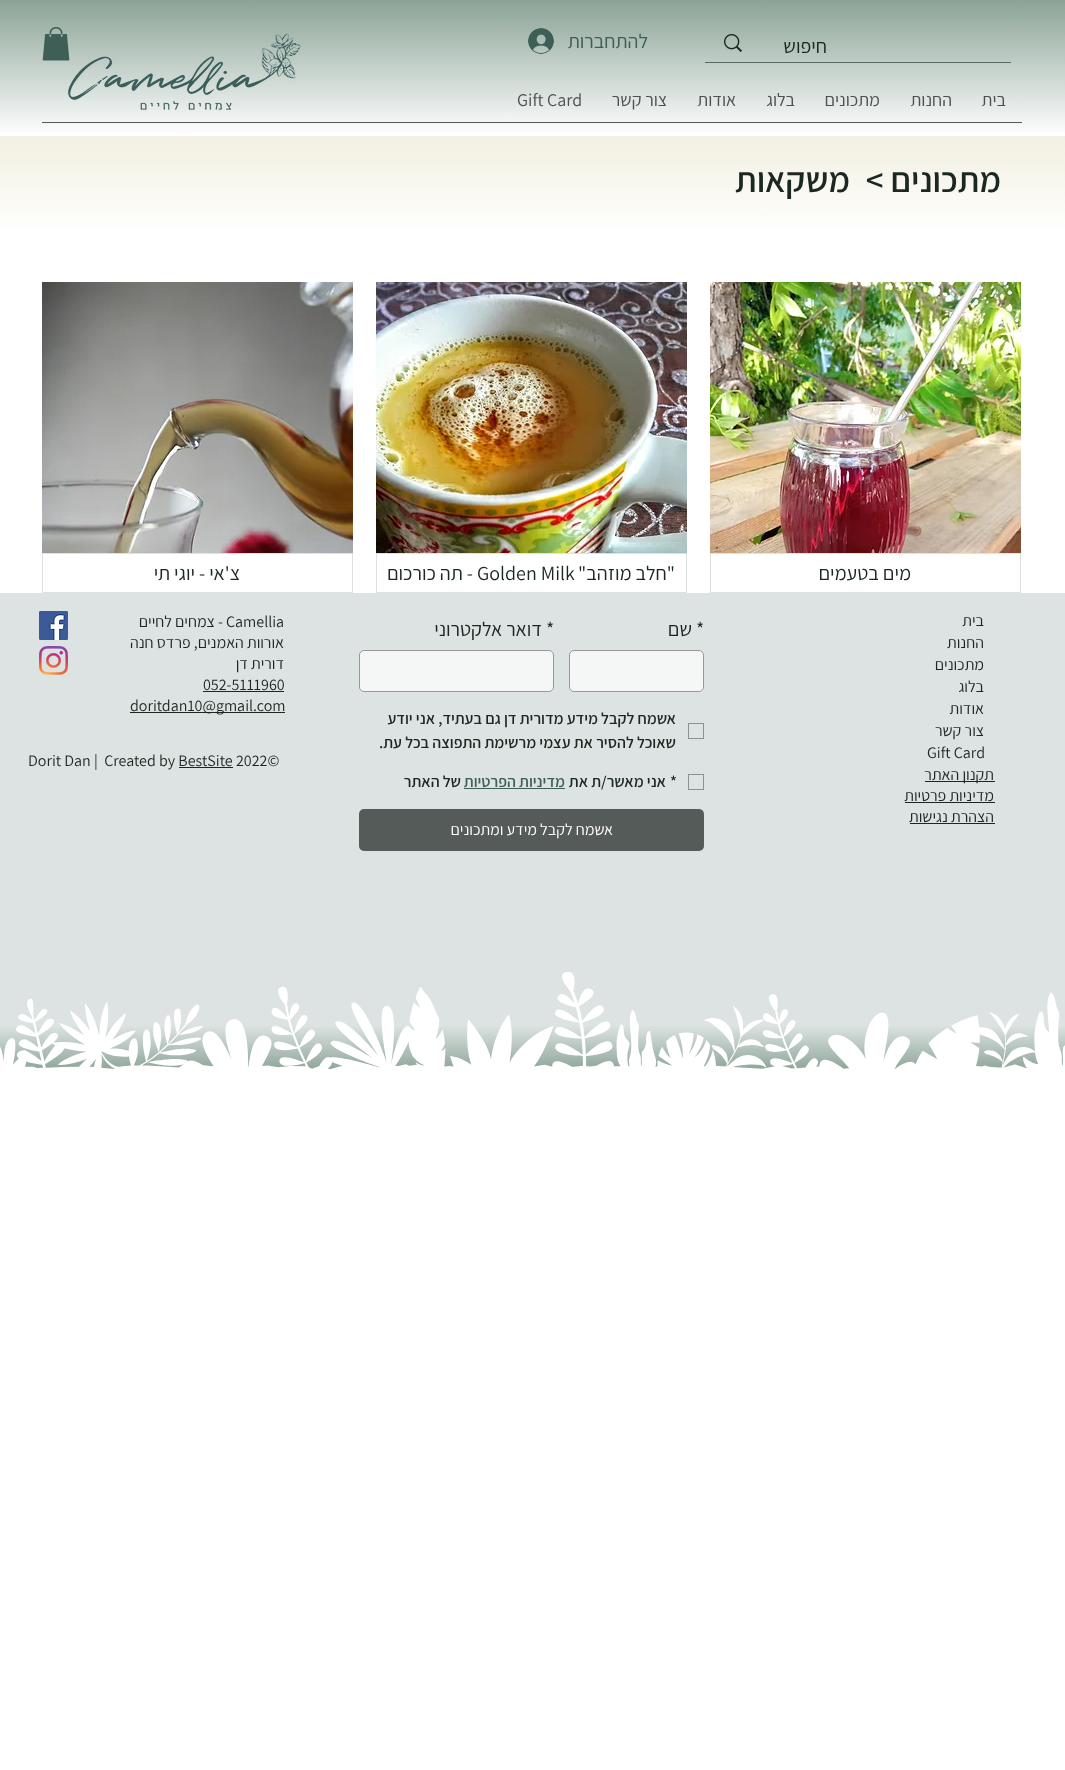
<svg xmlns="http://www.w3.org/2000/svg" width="1065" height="1770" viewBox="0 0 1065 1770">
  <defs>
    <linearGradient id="g1" gradientUnits="userSpaceOnUse" x1="533" y1="0" x2="533" y2="136"><stop offset="0" stop-color="#8ba396"/><stop offset="1" stop-color="#ffffff"/></linearGradient>
    <linearGradient id="g2" gradientUnits="userSpaceOnUse" x1="533" y1="136" x2="533" y2="236"><stop offset="0" stop-color="#f2f0e1"/><stop offset="1" stop-color="#ffffff"/></linearGradient>
    <linearGradient id="g3" gradientUnits="userSpaceOnUse" x1="533" y1="1016" x2="533" y2="1072"><stop offset="0.17" stop-color="#dce3e2"/><stop offset="1" stop-color="#8ba396"/></linearGradient>
  </defs>
  <rect width="100%" height="100%" fill="#ffffff"/>
  <rect x="0" y="0" width="1065" height="133" fill="url(#g1)"/>
  <rect x="705" y="62" width="306" height="1" fill="#5d6963"/>
  <text x="827" y="53" font-family="Assistant" font-size="20" direction="rtl" fill="#1b2721">חיפוש</text>
  <image x="724" y="34" width="18" height="18" href="img1.png"/>
  <text x="648" y="48" font-family="Assistant" font-size="20" direction="rtl" fill="#3d5f55">להתחברות</text>
  <image x="528" y="28" width="26" height="26" href="img2.png"/>
  <image x="67" y="33" width="234" height="102" href="img3.png"/>
  <image x="42" y="27" width="28" height="34" href="img4.png"/>
  <text x="1006" y="106" font-family="Assistant" font-size="18" direction="rtl" fill="#4f4f4f">בית</text>
  <text x="952" y="106" font-family="Assistant" font-size="18" direction="rtl" fill="#4f4f4f">החנות</text>
  <text x="880" y="106" font-family="Assistant" font-size="18" direction="rtl" fill="#4f4f4f">מתכונים</text>
  <text x="795" y="106" font-family="Assistant" font-size="18" direction="rtl" fill="#4f4f4f">בלוג</text>
  <text x="736" y="106" font-family="Assistant" font-size="18" direction="rtl" fill="#4f4f4f">אודות</text>
  <text x="667" y="106" font-family="Assistant" font-size="18" direction="rtl" fill="#4f4f4f">צור קשר</text>
  <text x="517" y="106" font-family="Assistant" font-size="18" fill="#4f4f4f">Gift Card</text>
  <rect x="42" y="122" width="980" height="1" fill="#555b59"/>
  <rect x="0" y="136" width="1065" height="92" fill="url(#g2)"/>
  <text x="1001" y="192" font-family="Assistant" font-size="35" font-weight="600" direction="rtl" fill="#1b2721">מתכונים &gt;</text>
  <text x="850" y="192" font-family="Assistant" font-size="35" font-weight="600" direction="rtl" fill="#1b2721">משקאות</text>
  <image x="710" y="282" width="311" height="271" href="img5.png"/>
  <rect x="710.5" y="553.5" width="310" height="39" fill="none" stroke="#dce3e2"/>
  <text x="911" y="580" font-family="Assistant" font-size="20" direction="rtl" fill="#1b2721">מים בטעמים</text>
  <image x="376" y="282" width="311" height="271" href="img6.png"/>
  <rect x="376.5" y="553.5" width="310" height="39" fill="none" stroke="#dce3e2"/>
  <text x="675" y="580" font-family="Assistant" font-size="20" direction="rtl" fill="#1b2721">"חלב מוזהב"</text>
  <text x="477" y="580" font-family="Assistant" font-size="20" fill="#1b2721">Golden Milk</text>
  <text x="473" y="580" font-family="Assistant" font-size="20" direction="rtl" fill="#1b2721">- תה כורכום</text>
  <image x="42" y="282" width="311" height="271" href="img7.png"/>
  <rect x="42.5" y="553.5" width="310" height="39" fill="none" stroke="#dce3e2"/>
  <text x="240" y="580" font-family="Assistant" font-size="20" direction="rtl" fill="#1b2721">צ'אי - יוגי תי</text>
  <rect x="0" y="593" width="1065" height="423" fill="#dce3e2"/>
  <text x="984" y="626" font-family="Assistant" font-size="16" direction="rtl" fill="#1b2721">בית</text>
  <text x="984" y="648" font-family="Assistant" font-size="16" direction="rtl" fill="#1b2721">החנות</text>
  <text x="984" y="670" font-family="Assistant" font-size="16" direction="rtl" fill="#1b2721">מתכונים</text>
  <text x="984" y="692" font-family="Assistant" font-size="16" direction="rtl" fill="#1b2721">בלוג</text>
  <text x="984" y="714" font-family="Assistant" font-size="16" direction="rtl" fill="#1b2721">אודות</text>
  <text x="984" y="736" font-family="Assistant" font-size="16" direction="rtl" fill="#1b2721">צור קשר</text>
  <text x="927" y="758" font-family="Assistant" font-size="16" fill="#1b2721">Gift Card</text>
  <rect x="925" y="781" width="70" height="1" fill="#1b2721"/>
  <text x="994" y="780" font-family="Assistant" font-size="16" direction="rtl" fill="#1b2721">תקנון האתר</text>
  <text x="994" y="801" font-family="Assistant" font-size="16" direction="rtl" fill="#1b2721">מדיניות פרטיות</text>
  <rect x="905" y="802" width="90" height="1" fill="#1b2721"/>
  <text x="994" y="822" font-family="Assistant" font-size="16" direction="rtl" fill="#1b2721">הצהרת נגישות</text>
  <rect x="910" y="823" width="85" height="1" fill="#1b2721"/>
  <text x="696" y="636" font-family="Assistant" font-size="20" fill="#1b2721">*</text>
  <text x="692" y="636" font-family="Assistant" font-size="20" direction="rtl" fill="#1b2721">שם</text>
  <text x="546" y="636" font-family="Assistant" font-size="20" fill="#1b2721">*</text>
  <text x="542" y="636" font-family="Assistant" font-size="20" direction="rtl" fill="#1b2721">דואר אלקטרוני</text>
  <rect x="569" y="650" width="135" height="42" rx="5" fill="#f5f7f6"/>
  <rect x="569.5" y="650.5" width="134" height="41" rx="4.5" fill="none" stroke="#555b59" stroke-opacity="0.6"/>
  <rect x="359" y="650" width="195" height="42" rx="5" fill="#f5f7f6"/>
  <rect x="359.5" y="650.5" width="194" height="41" rx="4.5" fill="none" stroke="#555b59" stroke-opacity="0.6"/>
  <rect x="688.5" y="723.5" width="15" height="15" fill="none" stroke="#8b9190"/>
  <text x="676" y="724" font-family="Assistant" font-size="16" font-weight="600" direction="rtl" fill="#1b2721">אשמח לקבל מידע מדורית דן גם בעתיד, אני יודע</text>
  <text x="676" y="748" font-family="Assistant" font-size="16" font-weight="600" direction="rtl" fill="#1b2721">שאוכל להסיר את עצמי מרשימת התפוצה בכל עת.</text>
  <rect x="688.5" y="774.5" width="15" height="15" fill="none" stroke="#8b9190"/>
  <text x="670" y="787" font-family="Assistant" font-size="16" font-weight="600" fill="#1b2721">*</text>
  <text x="666" y="787" font-family="Assistant" font-size="16" font-weight="600" direction="rtl" fill="#1b2721">אני מאשר/ת את</text>
  <text x="565" y="787" font-family="Assistant" font-size="16" font-weight="600" direction="rtl" fill="#3d5f55">מדיניות הפרטיות</text>
  <rect x="464" y="788" width="101" height="1" fill="#3d5f55"/>
  <text x="461" y="787" font-family="Assistant" font-size="16" font-weight="600" direction="rtl" fill="#1b2721">של האתר</text>
  <rect x="359" y="809" width="345" height="42" rx="5" fill="#555b59"/>
  <text x="613" y="835" font-family="Assistant" font-size="16" direction="rtl" fill="#ffffff">אשמח לקבל מידע ומתכונים</text>
  <text x="226" y="627" font-family="Assistant" font-size="16" fill="#1b2721">Camellia</text>
  <text x="223" y="627" font-family="Assistant" font-size="16" direction="rtl" fill="#1b2721">- צמחים לחיים</text>
  <text x="284" y="648" font-family="Assistant" font-size="16" direction="rtl" fill="#1b2721">אורוות האמנים, פרדס חנה</text>
  <text x="284" y="669" font-family="Assistant" font-size="16" direction="rtl" fill="#1b2721">דורית דן</text>
  <text x="203" y="690" font-family="Assistant" font-size="16" fill="#1b2721">052-5111960</text>
  <rect x="203" y="691" width="81" height="1" fill="#1b2721"/>
  <rect x="130" y="712" width="155" height="1" fill="#1b2721"/>
  <text x="130" y="711" font-family="Assistant" font-size="16" fill="#1b2721">doritdan10@gmail.com</text>
  <image x="39" y="611" width="29" height="29" href="img8.png"/>
  <image x="39" y="646" width="29" height="29" href="img9.png"/>
  <text x="236" y="766" font-family="Assistant" font-size="16" fill="#1b2721">2022©</text>
  <text x="28" y="766" font-family="Assistant" font-size="16" fill="#1b2721" xml:space="preserve">Dorit Dan |  Created by BestSite</text>
  <rect x="179" y="767" width="54" height="1" fill="#1b2721"/>
  <rect x="0" y="1016" width="1065" height="53" fill="url(#g3)"/>
  <image x="0" y="972" width="1065" height="100" href="img10.png"/>
</svg>
